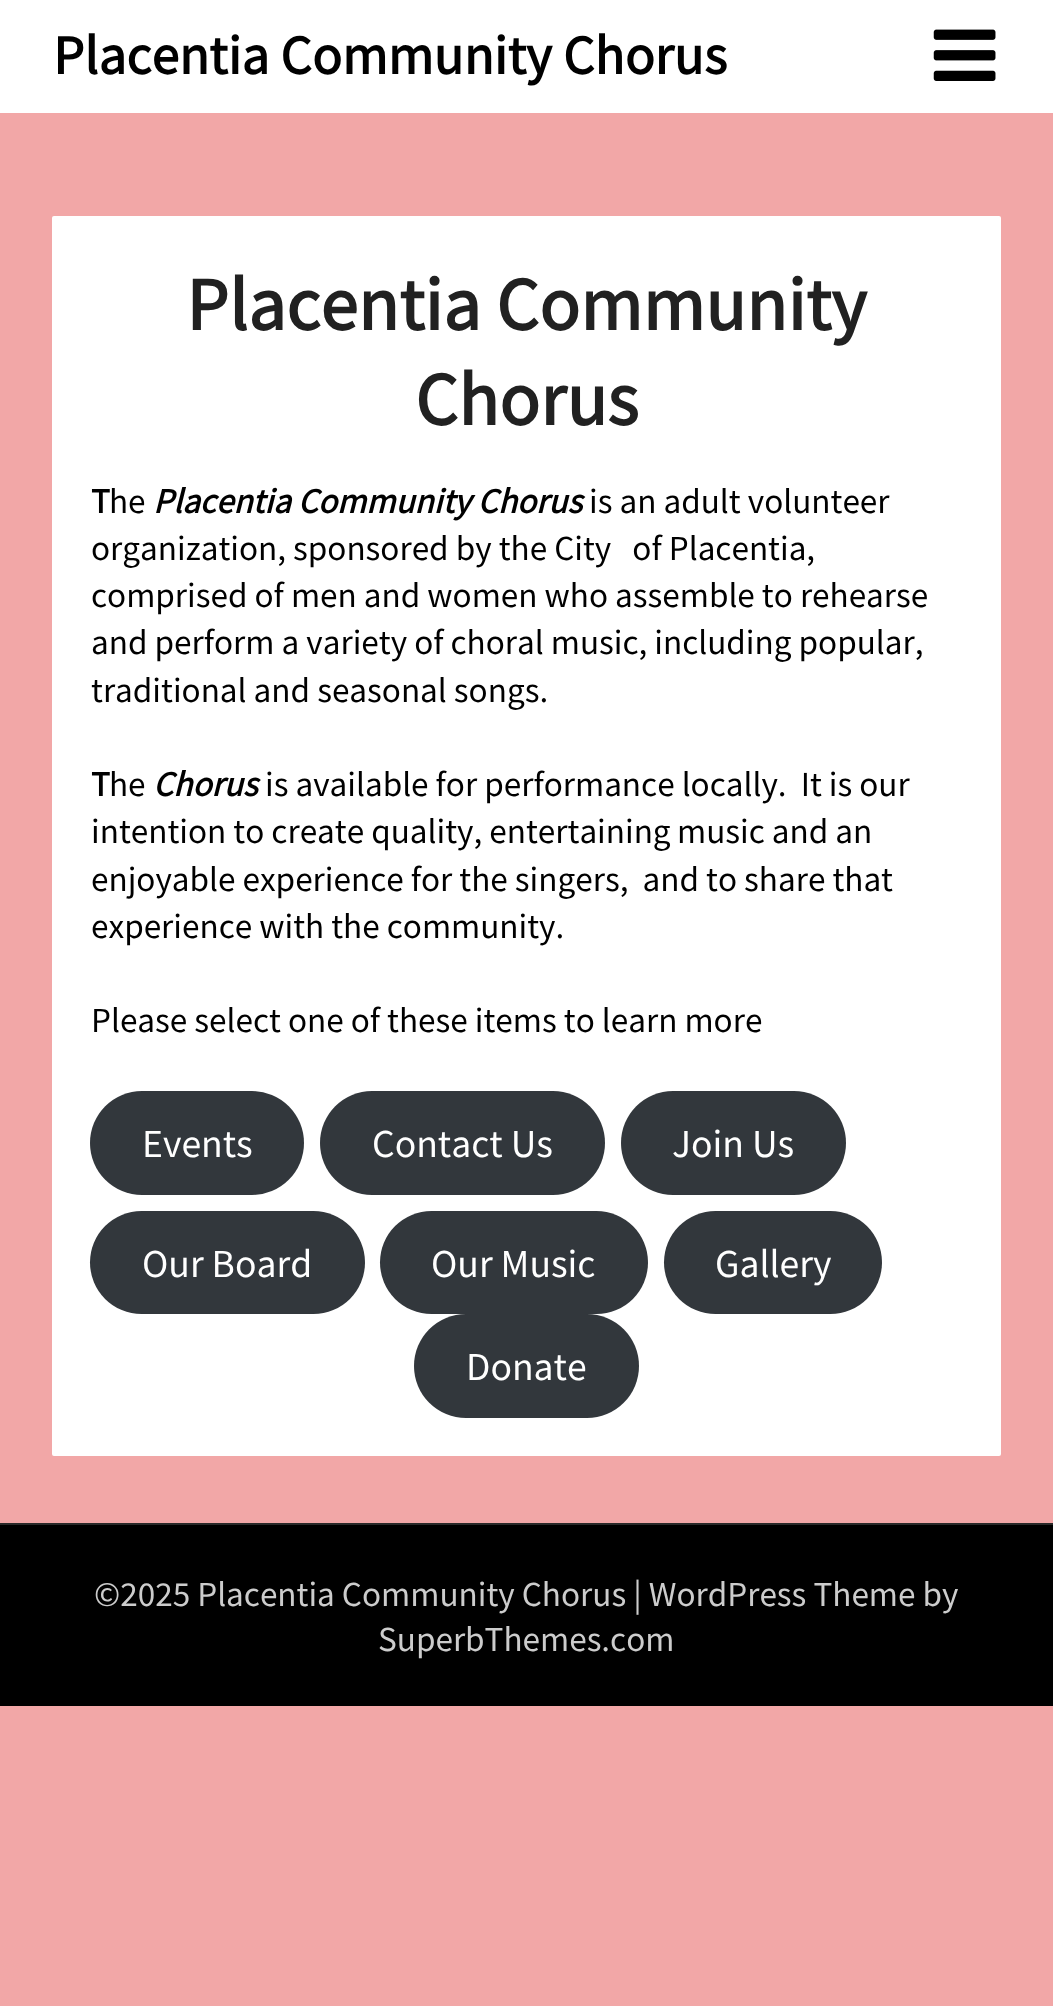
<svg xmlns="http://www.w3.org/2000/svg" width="1053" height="2006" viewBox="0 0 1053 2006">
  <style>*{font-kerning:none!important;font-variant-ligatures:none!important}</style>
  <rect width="100%" height="100%" fill="#f2a7a7"/>
  <rect x="0" y="0" width="1053" height="113" fill="#ffffff"/>
  <text x="53" y="74" font-family="Noto Sans JP" font-size="49.5" font-weight="bold" fill="#000000">Placentia Community Chorus</text>
  <image x="933" y="29" width="63" height="52" href="img1.png"/>
  <rect x="52" y="216" width="949" height="1240" rx="2" fill="#ffffff"/>
  <text x="186" y="330" font-family="Noto Sans JP" font-size="67.5" font-weight="bold" fill="#212121">Placentia Community</text>
  <text x="415" y="425" font-family="Noto Sans JP" font-size="67.5" font-weight="bold" fill="#212121">Chorus</text>
  <text x="91" y="513" font-family="Noto Sans JP" font-size="31.5" font-weight="bold" fill="#000000">T</text>
  <text x="109" y="513" font-family="Noto Sans JP" font-size="31.5" font-weight="100" fill="#000000">he</text>
  <text x="153" y="513" font-family="Noto Sans JP" font-size="31.5" font-weight="bold" font-style="italic" fill="#000000">Placentia Community Chorus</text>
  <text x="589" y="513" font-family="Noto Sans JP" font-size="31.5" font-weight="100" fill="#000000">is an adult volunteer</text>
  <text x="91" y="560" font-family="Noto Sans JP" font-size="31.5" font-weight="100" fill="#000000" xml:space="preserve">organization, sponsored by the City   of Placentia,</text>
  <text x="91" y="607" font-family="Noto Sans JP" font-size="31.5" font-weight="100" fill="#000000">comprised of men and women who assemble to rehearse</text>
  <text x="91" y="654" font-family="Noto Sans JP" font-size="31.5" font-weight="100" fill="#000000">and perform a variety of choral music, including popular,</text>
  <text x="91" y="702" font-family="Noto Sans JP" font-size="31.5" font-weight="100" fill="#000000">traditional and seasonal songs.</text>
  <text x="91" y="796" font-family="Noto Sans JP" font-size="31.5" font-weight="bold" fill="#000000">T</text>
  <text x="109" y="796" font-family="Noto Sans JP" font-size="31.5" font-weight="100" fill="#000000">he</text>
  <text x="153" y="796" font-family="Noto Sans JP" font-size="31.5" font-weight="bold" font-style="italic" fill="#000000">Chorus</text>
  <text x="265" y="796" font-family="Noto Sans JP" font-size="31.5" font-weight="100" fill="#000000" xml:space="preserve">is available for performance locally.  It is our</text>
  <text x="91" y="843" font-family="Noto Sans JP" font-size="31.5" font-weight="100" fill="#000000">intention to create quality, entertaining</text>
  <text x="677" y="843" font-family="Noto Sans JP" font-size="31.5" font-weight="100" fill="#000000">music and an</text>
  <text x="91" y="891" font-family="Noto Sans JP" font-size="31.5" font-weight="100" fill="#000000" xml:space="preserve">enjoyable experience for the singers,  and to share that</text>
  <text x="91" y="938" font-family="Noto Sans JP" font-size="31.5" font-weight="100" fill="#000000">experience with the community.</text>
  <text x="91" y="1032" font-family="Noto Sans JP" font-size="31.5" font-weight="100" fill="#000000">Please select one of these items to learn more</text>
  <rect x="90" y="1091" width="214" height="104" rx="52" fill="#32373c"/>
  <text x="142" y="1157" font-family="Noto Sans JP" font-size="35.5" font-weight="100" fill="#ffffff">Events</text>
  <rect x="320" y="1091" width="285" height="104" rx="52" fill="#32373c"/>
  <text x="372" y="1157" font-family="Noto Sans JP" font-size="35.5" font-weight="100" fill="#ffffff">Contact Us</text>
  <rect x="621" y="1091" width="225" height="104" rx="52" fill="#32373c"/>
  <text x="672" y="1157" font-family="Noto Sans JP" font-size="35.5" font-weight="100" fill="#ffffff">Join Us</text>
  <rect x="90" y="1211" width="275" height="103" rx="51.5" fill="#32373c"/>
  <text x="142" y="1277" font-family="Noto Sans JP" font-size="35.5" font-weight="100" fill="#ffffff">Our Board</text>
  <rect x="380" y="1211" width="268" height="103" rx="51.5" fill="#32373c"/>
  <text x="431" y="1277" font-family="Noto Sans JP" font-size="35.5" font-weight="100" fill="#ffffff">Our Music</text>
  <rect x="664" y="1211" width="218" height="103" rx="51.5" fill="#32373c"/>
  <text x="715" y="1277" font-family="Noto Sans JP" font-size="35.5" font-weight="100" fill="#ffffff">Gallery</text>
  <rect x="414" y="1314" width="225" height="104" rx="52" fill="#32373c"/>
  <text x="466" y="1380" font-family="Noto Sans JP" font-size="35.5" font-weight="100" fill="#ffffff">Donate</text>
  <rect x="0" y="1525" width="1053" height="181" fill="#000000"/>
  <rect x="0" y="1523" width="1053" height="2" fill="#292929"/>
  <text x="94" y="1606" font-family="Noto Sans JP" font-size="31.5" font-weight="100" fill="#cccccc">©2025 Placentia Community Chorus | WordPress Theme by</text>
  <text x="378" y="1651" font-family="Noto Sans JP" font-size="31.5" font-weight="100" fill="#cccccc">SuperbThemes.com</text>
</svg>
